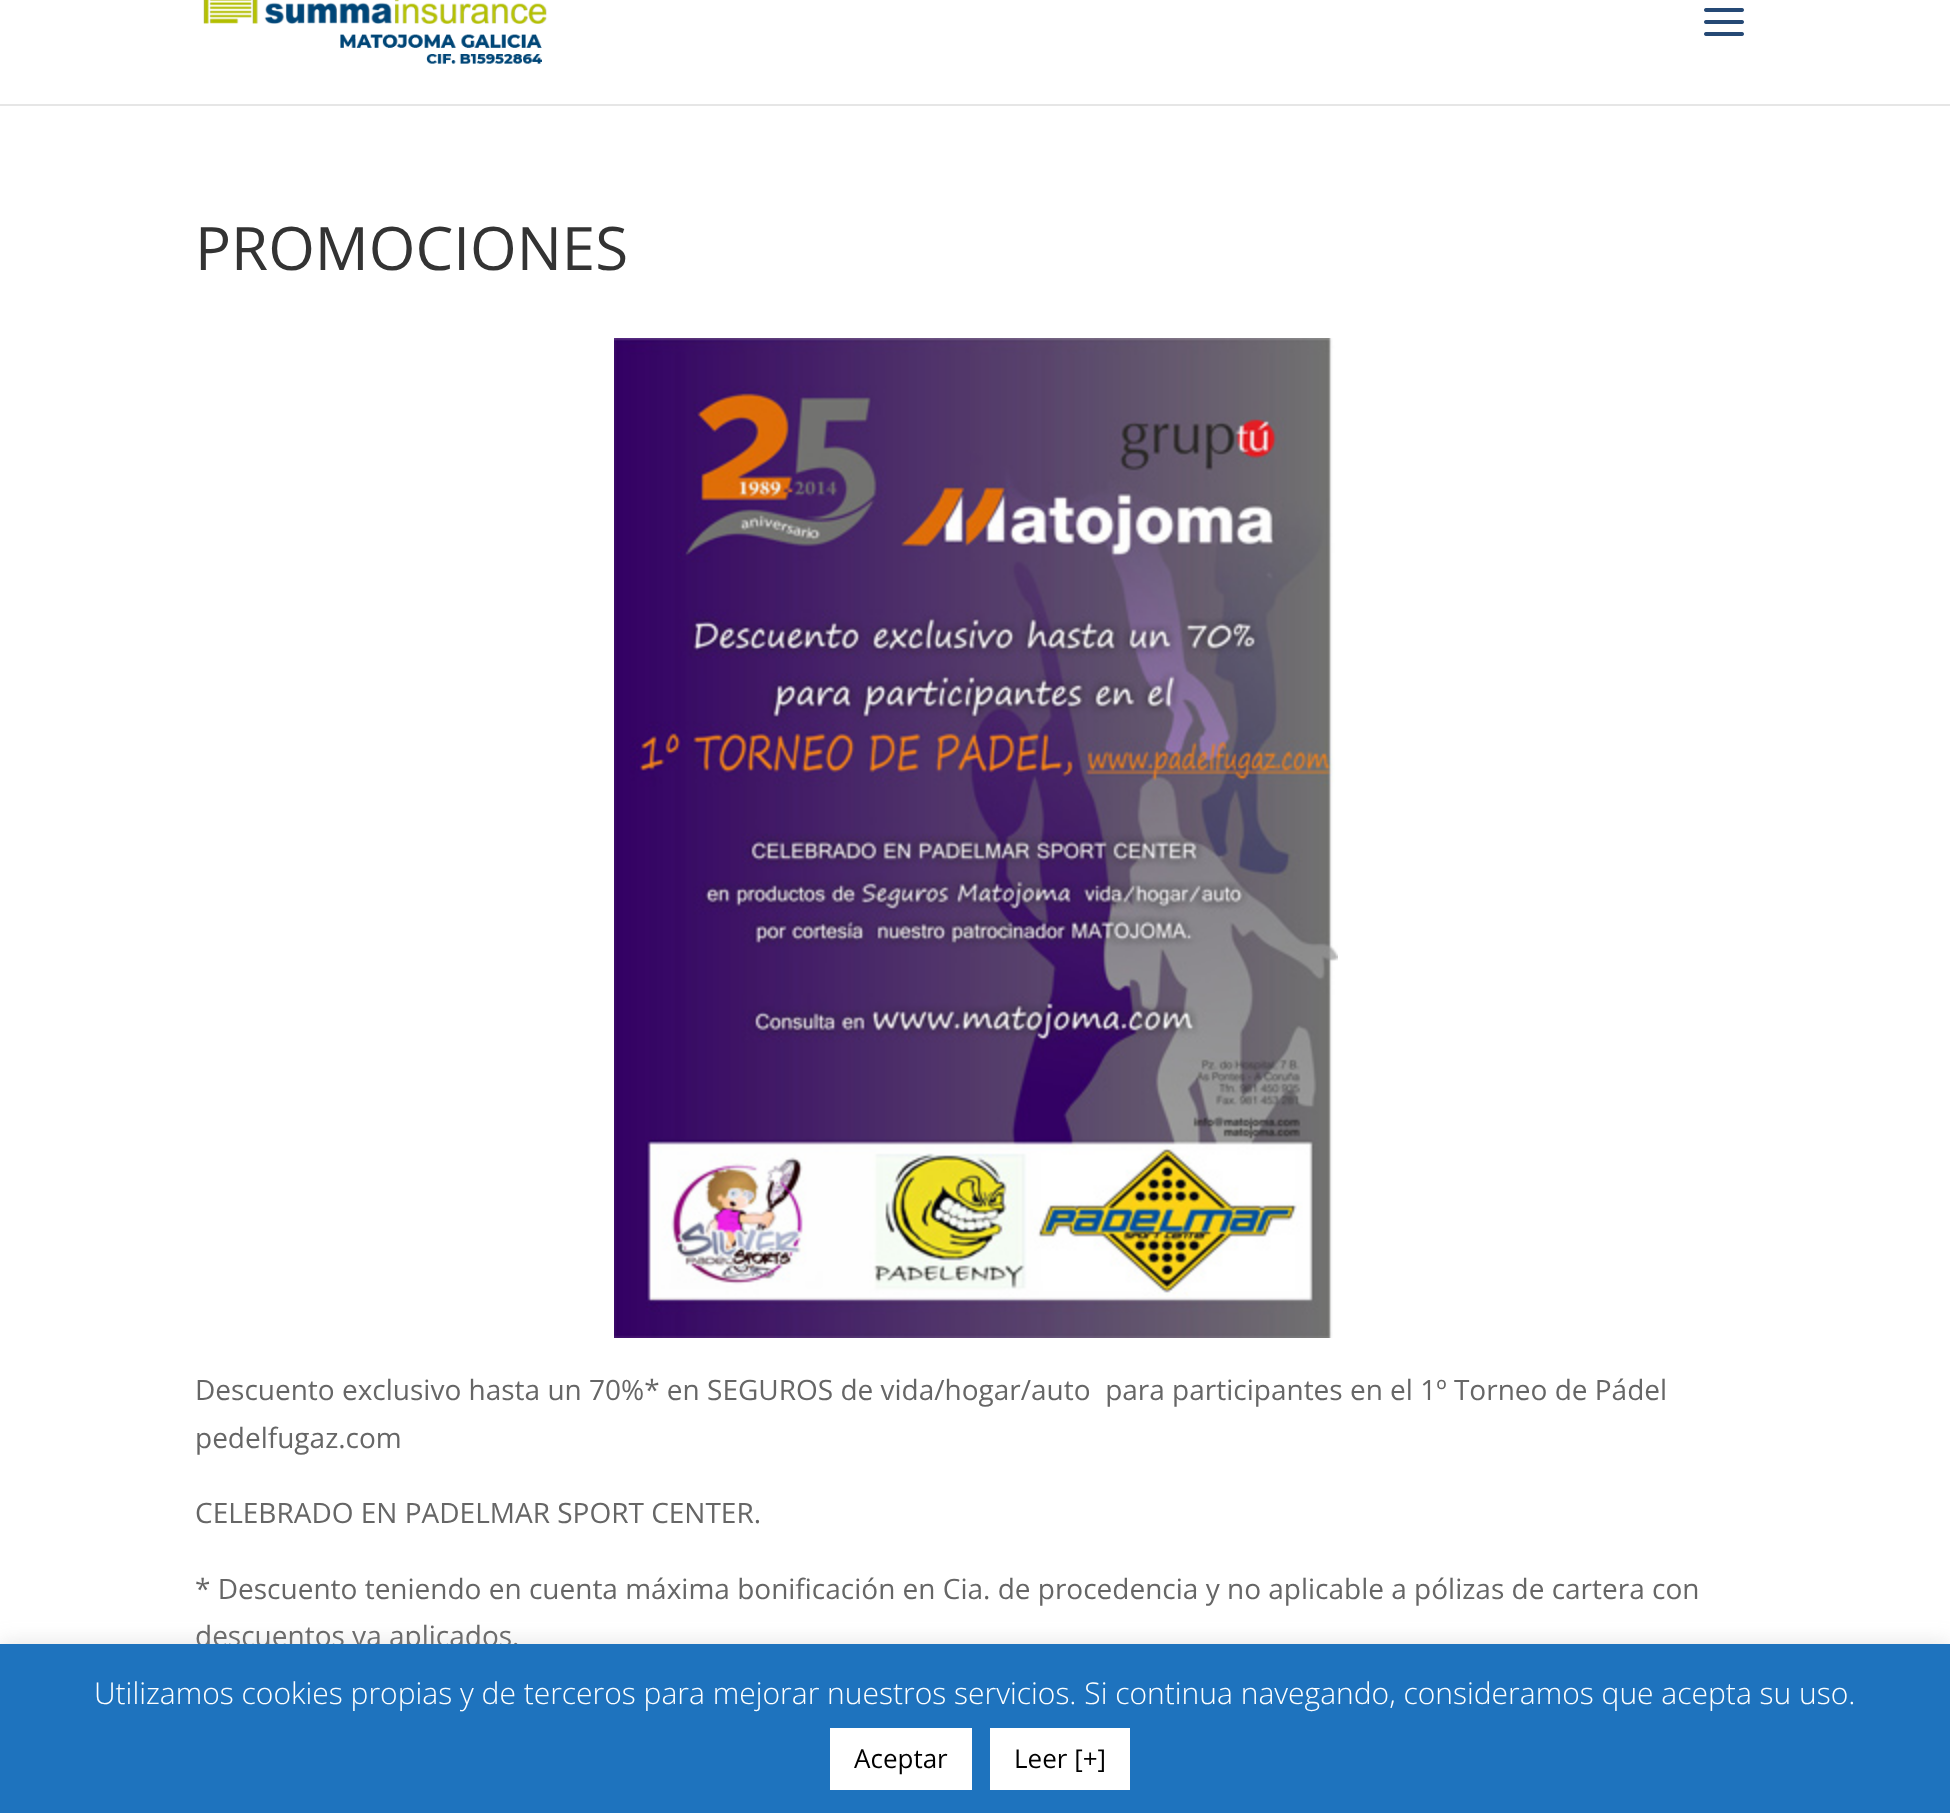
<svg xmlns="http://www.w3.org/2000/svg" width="1950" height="1813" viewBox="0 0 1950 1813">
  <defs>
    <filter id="blur1" x="-50%" y="-200%" width="200%" height="500%"><feGaussianBlur stdDeviation="10"/></filter>
  </defs>
  <rect width="100%" height="100%" fill="#ffffff"/>
  <rect x="0" y="104" width="1950" height="2" fill="#e6e6e6"/>
  <image x="203" y="0" width="344" height="64" href="img1.png"/>
  <image x="1704" y="8" width="40" height="28" href="img2.png"/>
  <text x="195" y="270" font-family="Open Sans" font-size="60" fill="#333333">PROMOCIONES</text>
  <image x="614" y="338" width="724" height="1000" href="img3.png"/>
  <text x="195" y="1400" font-family="Open Sans" font-size="28" fill="#666666" xml:space="preserve">Descuento exclusivo hasta un 70%* en SEGUROS de vida/hogar/auto  para participantes en el 1º Torneo de Pádel</text>
  <text x="195" y="1448" font-family="Open Sans" font-size="28" fill="#666666">pedelfugaz.com</text>
  <text x="195" y="1523" font-family="Open Sans" font-size="28" fill="#666666">CELEBRADO EN PADELMAR SPORT CENTER.</text>
  <text x="195" y="1599" font-family="Open Sans" font-size="28" fill="#666666">* Descuento teniendo en cuenta máxima bonificación en Cia. de procedencia y no aplicable a pólizas de cartera con</text>
  <text x="195" y="1646" font-family="Open Sans" font-size="28" fill="#666666">descuentos ya aplicados.</text>
  <rect x="0" y="1642" width="1950" height="170" fill="#acabab" fill-opacity="0.3" filter="url(#blur1)"/>
  <rect x="0" y="1644" width="1950" height="169" fill="#1e73be"/>
  <text x="94" y="1704" font-family="Open Sans" font-size="30" font-weight="300" fill="#ffffff">Utilizamos cookies propias y de terceros para mejorar nuestros servicios. Si continua navegando, consideramos que acepta su uso.</text>
  <rect x="830" y="1728" width="142" height="62" fill="#ffffff"/>
  <text x="854" y="1768" font-family="Open Sans" font-size="26" fill="#000000">Aceptar</text>
  <rect x="990" y="1728" width="140" height="62" fill="#ffffff"/>
  <text x="1014" y="1768" font-family="Open Sans" font-size="26" fill="#000000">Leer [+]</text>
</svg>
